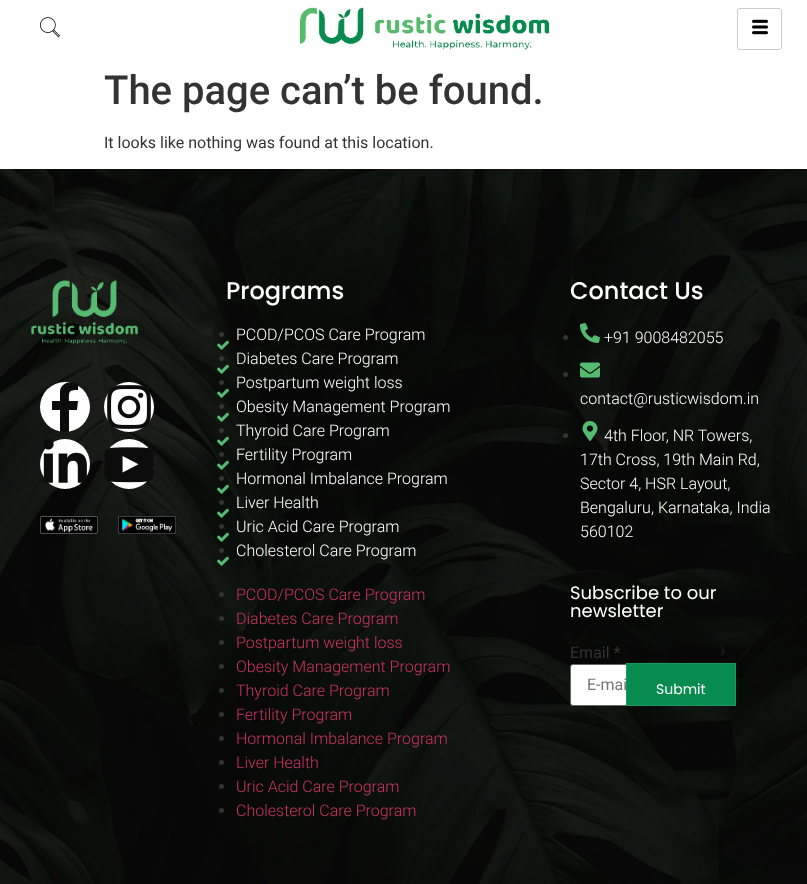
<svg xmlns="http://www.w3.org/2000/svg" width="807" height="884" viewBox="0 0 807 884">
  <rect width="100%" height="100%" fill="#ffffff"/>
  <image x="40" y="17" width="20" height="21" href="img1.png"/>
  <image x="299" y="7" width="251" height="43" href="img2.png"/>
  <rect x="737.5" y="8.5" width="44" height="41" rx="2.5" fill="none" stroke="#cccccc"/>
  <image x="752" y="19" width="16" height="16" href="img3.png"/>
  <text x="104" y="104" font-family="Roboto" font-size="40" font-weight="500" fill="#333333">The page can’t be found.</text>
  <text x="104" y="148" font-family="Roboto" font-size="16" fill="#333333">It looks like nothing was found at this location.</text>
  <image x="0" y="169" width="807" height="715" href="img4.png"/>
  <image x="30" y="280" width="109" height="65" href="img5.png"/>
  <circle cx="65" cy="407" r="25" fill="#ffffff"/>
  <path d="M77 410L78 401H69C69 392 68 390 78 390V383C71 381 61 382 60 391V401H52V410H60V432H69V410Z" fill="#0c0c0c"/>
  <circle cx="129" cy="407" r="25" fill="#ffffff"/>
  <image x="107" y="385" width="44" height="44" href="img6.png"/>
  <circle cx="65" cy="464" r="25" fill="#ffffff"/>
  <image x="43" y="439" width="44" height="44" href="img7.png"/>
  <circle cx="129" cy="464" r="25" fill="#ffffff"/>
  <image x="104" y="447" width="50" height="36" href="img8.png"/>
  <image x="40" y="516" width="58" height="18" href="img9.png"/>
  <image x="118" y="516" width="58" height="18" href="img10.png"/>
  <text x="226" y="299" font-family="Poppins" font-size="24" font-weight="500" fill="#ffffff">Programs</text>
  <circle cx="221.5" cy="334.5" r="2.5" fill="#333333"/>
  <text x="236" y="340" font-family="Roboto" font-size="16" font-weight="300" fill="#ffffff">PCOD/PCOS Care Program</text>
  <image x="217" y="340" width="12" height="10" href="img11.png"/>
  <circle cx="221.5" cy="358.5" r="2.5" fill="#333333"/>
  <text x="236" y="364" font-family="Roboto" font-size="16" font-weight="300" fill="#ffffff">Diabetes Care Program</text>
  <image x="217" y="364" width="12" height="10" href="img12.png"/>
  <circle cx="221.5" cy="382.5" r="2.5" fill="#333333"/>
  <text x="236" y="388" font-family="Roboto" font-size="16" font-weight="300" fill="#ffffff">Postpartum weight loss</text>
  <image x="217" y="388" width="12" height="10" href="img13.png"/>
  <circle cx="221.5" cy="406.5" r="2.5" fill="#333333"/>
  <text x="236" y="412" font-family="Roboto" font-size="16" font-weight="300" fill="#ffffff">Obesity Management Program</text>
  <image x="217" y="412" width="12" height="10" href="img14.png"/>
  <circle cx="221.5" cy="430.5" r="2.5" fill="#333333"/>
  <text x="236" y="436" font-family="Roboto" font-size="16" font-weight="300" fill="#ffffff">Thyroid Care Program</text>
  <image x="217" y="436" width="12" height="10" href="img15.png"/>
  <circle cx="221.5" cy="454.5" r="2.5" fill="#333333"/>
  <text x="236" y="460" font-family="Roboto" font-size="16" font-weight="300" fill="#ffffff">Fertility Program</text>
  <image x="217" y="460" width="12" height="10" href="img16.png"/>
  <circle cx="221.5" cy="478.5" r="2.5" fill="#333333"/>
  <text x="236" y="484" font-family="Roboto" font-size="16" font-weight="300" fill="#ffffff">Hormonal Imbalance Program</text>
  <image x="217" y="484" width="12" height="10" href="img17.png"/>
  <circle cx="221.5" cy="502.5" r="2.5" fill="#333333"/>
  <text x="236" y="508" font-family="Roboto" font-size="16" font-weight="300" fill="#ffffff">Liver Health</text>
  <image x="217" y="508" width="12" height="10" href="img18.png"/>
  <circle cx="221.5" cy="526.5" r="2.5" fill="#333333"/>
  <text x="236" y="532" font-family="Roboto" font-size="16" font-weight="300" fill="#ffffff">Uric Acid Care Program</text>
  <image x="217" y="532" width="12" height="10" href="img19.png"/>
  <circle cx="221.5" cy="550.5" r="2.5" fill="#333333"/>
  <text x="236" y="556" font-family="Roboto" font-size="16" font-weight="300" fill="#ffffff">Cholesterol Care Program</text>
  <image x="217" y="556" width="12" height="10" href="img20.png"/>
  <circle cx="221.5" cy="594.5" r="2.5" fill="#333333"/>
  <text x="236" y="600" font-family="Roboto" font-size="16" font-weight="300" fill="#cc3366">PCOD/PCOS Care Program</text>
  <circle cx="221.5" cy="618.5" r="2.5" fill="#333333"/>
  <text x="236" y="624" font-family="Roboto" font-size="16" font-weight="300" fill="#cc3366">Diabetes Care Program</text>
  <circle cx="221.5" cy="642.5" r="2.5" fill="#333333"/>
  <text x="236" y="648" font-family="Roboto" font-size="16" font-weight="300" fill="#cc3366">Postpartum weight loss</text>
  <circle cx="221.5" cy="666.5" r="2.5" fill="#333333"/>
  <text x="236" y="672" font-family="Roboto" font-size="16" font-weight="300" fill="#cc3366">Obesity Management Program</text>
  <circle cx="221.5" cy="690.5" r="2.5" fill="#333333"/>
  <text x="236" y="696" font-family="Roboto" font-size="16" font-weight="300" fill="#cc3366">Thyroid Care Program</text>
  <circle cx="221.5" cy="714.5" r="2.5" fill="#333333"/>
  <text x="236" y="720" font-family="Roboto" font-size="16" font-weight="300" fill="#cc3366">Fertility Program</text>
  <circle cx="221.5" cy="738.5" r="2.5" fill="#333333"/>
  <text x="236" y="744" font-family="Roboto" font-size="16" font-weight="300" fill="#cc3366">Hormonal Imbalance Program</text>
  <circle cx="221.5" cy="762.5" r="2.5" fill="#333333"/>
  <text x="236" y="768" font-family="Roboto" font-size="16" font-weight="300" fill="#cc3366">Liver Health</text>
  <circle cx="221.5" cy="786.5" r="2.5" fill="#333333"/>
  <text x="236" y="792" font-family="Roboto" font-size="16" font-weight="300" fill="#cc3366">Uric Acid Care Program</text>
  <circle cx="221.5" cy="810.5" r="2.5" fill="#333333"/>
  <text x="236" y="816" font-family="Roboto" font-size="16" font-weight="300" fill="#cc3366">Cholesterol Care Program</text>
  <text x="570" y="299" font-family="Poppins" font-size="24" font-weight="500" fill="#ffffff">Contact Us</text>
  <circle cx="565.5" cy="337.5" r="2.5" fill="#333333"/>
  <image x="580" y="323" width="20" height="20" href="img21.png"/>
  <text x="604" y="343" font-family="Roboto" font-size="16" font-weight="300" fill="#ffffff">+91 9008482055</text>
  <circle cx="565.5" cy="374.5" r="2.5" fill="#333333"/>
  <image x="580" y="362" width="20" height="16" href="img22.png"/>
  <text x="580" y="404" font-family="Roboto" font-size="16" font-weight="300" fill="#ffffff">contact@rusticwisdom.in</text>
  <circle cx="565.5" cy="435.5" r="2.5" fill="#333333"/>
  <image x="582" y="421" width="16" height="20" href="img23.png"/>
  <text x="604" y="441" font-family="Roboto" font-size="16" font-weight="300" fill="#ffffff">4th Floor, NR Towers,</text>
  <text x="580" y="465" font-family="Roboto" font-size="16" font-weight="300" fill="#ffffff">17th Cross, 19th Main Rd,</text>
  <text x="580" y="489" font-family="Roboto" font-size="16" font-weight="300" fill="#ffffff">Sector 4, HSR Layout,</text>
  <text x="580" y="513" font-family="Roboto" font-size="16" font-weight="300" fill="#ffffff">Bengaluru, Karnataka, India</text>
  <text x="580" y="537" font-family="Roboto" font-size="16" font-weight="300" fill="#ffffff">560102</text>
  <text x="570" y="599" font-family="Poppins" font-size="18" fill="#ffffff">Subscribe to our</text>
  <text x="570" y="617" font-family="Poppins" font-size="18" fill="#ffffff">newsletter</text>
  <text x="570" y="658" font-family="Roboto" font-size="16" fill="#333333">Email *</text>
  <rect x="570.5" y="664.5" width="165" height="41" rx="2.5" fill="#ffffff" stroke="#666666"/>
  <text x="587" y="690" font-family="Roboto" font-size="16" fill="#757575">E-mai</text>
  <rect x="626.5" y="663.5" width="109" height="42" fill="#078b4f" stroke="#20975f"/>
  <text x="656" y="694" font-family="Poppins" font-size="14" fill="#ffffff">Submit</text>
</svg>
